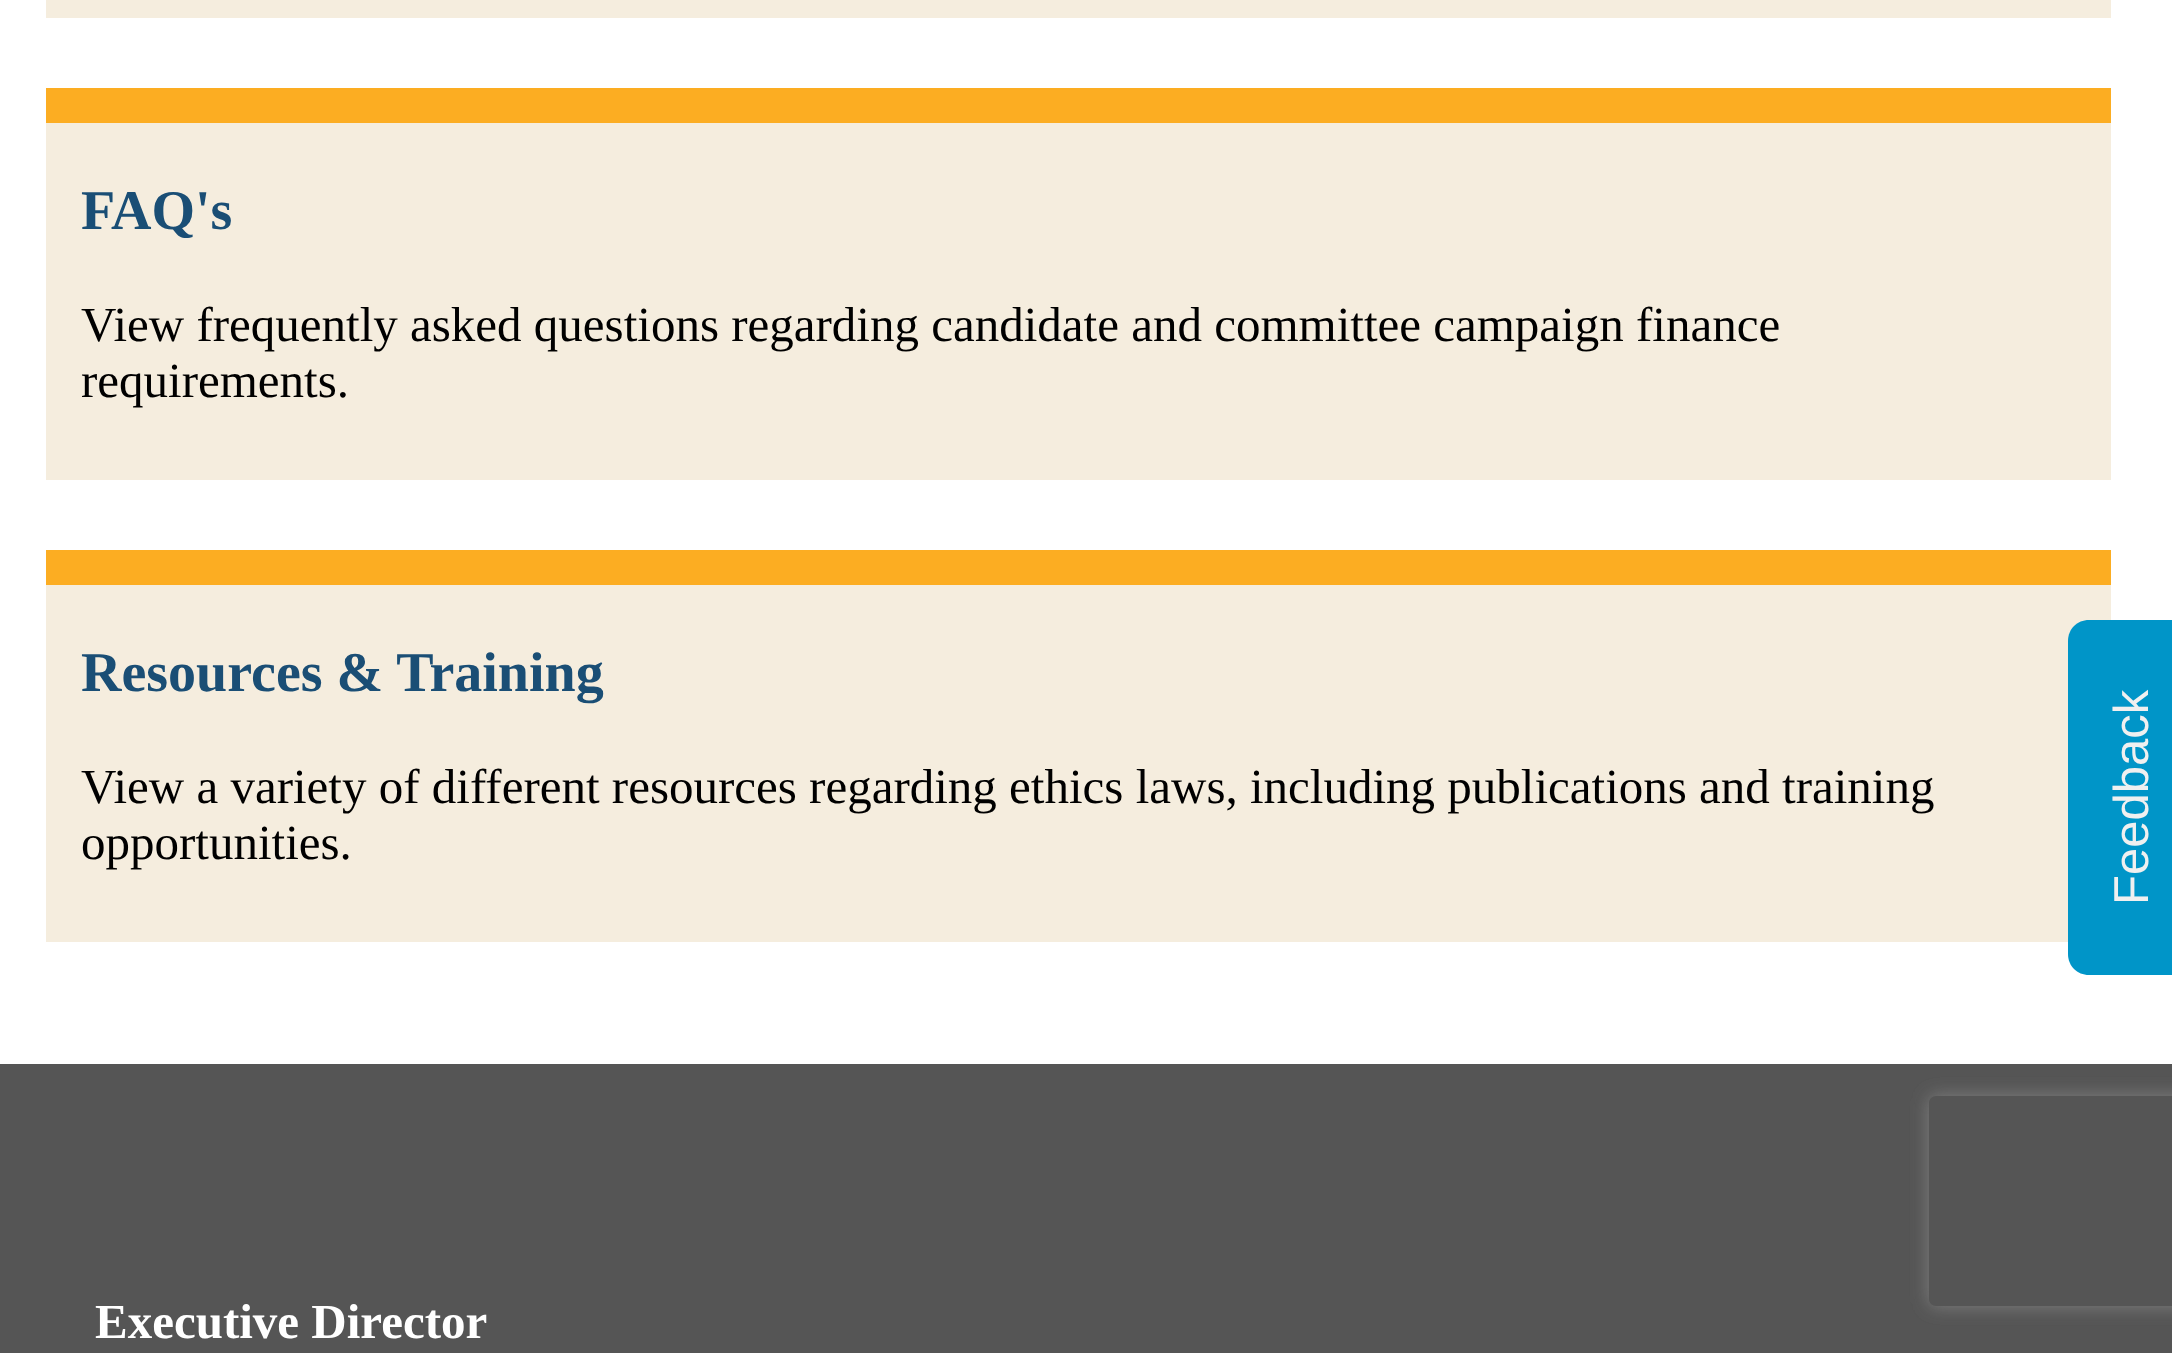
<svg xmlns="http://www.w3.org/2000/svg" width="2172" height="1353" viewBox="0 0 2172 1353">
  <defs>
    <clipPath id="clip1"><path d="M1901 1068H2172V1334H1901ZM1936 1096H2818C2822 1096 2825 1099 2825 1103V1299C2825 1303 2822 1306 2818 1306H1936C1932 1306 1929 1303 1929 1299V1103C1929 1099 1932 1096 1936 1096Z" clip-rule="evenodd"/></clipPath>
    <filter id="blur1" x="-50%" y="-200%" width="200%" height="500%"><feGaussianBlur stdDeviation="9"/></filter>
  </defs>
  <rect width="100%" height="100%" fill="#ffffff"/>
  <rect x="46" y="0" width="2065" height="18" fill="#f5edde"/>
  <rect x="46" y="123" width="2065" height="357" fill="#f5edde"/>
  <rect x="46" y="88" width="2065" height="35" fill="#fcad22"/>
  <text x="81" y="229" font-family="Liberation Serif" font-size="56" font-weight="bold" fill="#1a4e75">FAQ's</text>
  <text x="81" y="341" font-family="Liberation Serif" font-size="49" fill="#000000">View frequently asked questions regarding candidate and committee campaign finance</text>
  <text x="81" y="397" font-family="Liberation Serif" font-size="49" fill="#000000">requirements.</text>
  <rect x="46" y="585" width="2065" height="357" fill="#f5edde"/>
  <rect x="46" y="550" width="2065" height="35" fill="#fcad22"/>
  <text x="81" y="691" font-family="Liberation Serif" font-size="56" font-weight="bold" fill="#1a4e75">Resources &amp; Training</text>
  <text x="81" y="803" font-family="Liberation Serif" font-size="49" fill="#000000">View a variety of different resources regarding ethics laws, including publications and training</text>
  <text x="81" y="859" font-family="Liberation Serif" font-size="49" fill="#000000">opportunities.</text>
  <path d="M2068 954V641C2068 629 2077 620 2089 620H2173V975H2089C2077 975 2068 966 2068 954Z" fill="#0095c8"/>
  <text x="2148" y="905" transform="rotate(-90 2148 905)" font-family="Liberation Sans" font-size="49" fill="#f0f0f0">Feedback</text>
  <rect x="0" y="1064" width="2172" height="289" fill="#555555"/>
  <text x="95" y="1338" font-family="Liberation Serif" font-size="49" font-weight="bold" fill="#ffffff">Executive Director</text>
  <g clip-path="url(#clip1)">
    <rect x="1929" y="1096" width="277" height="210" rx="7" fill="#808080" filter="url(#blur1)"/>
  </g>
</svg>
